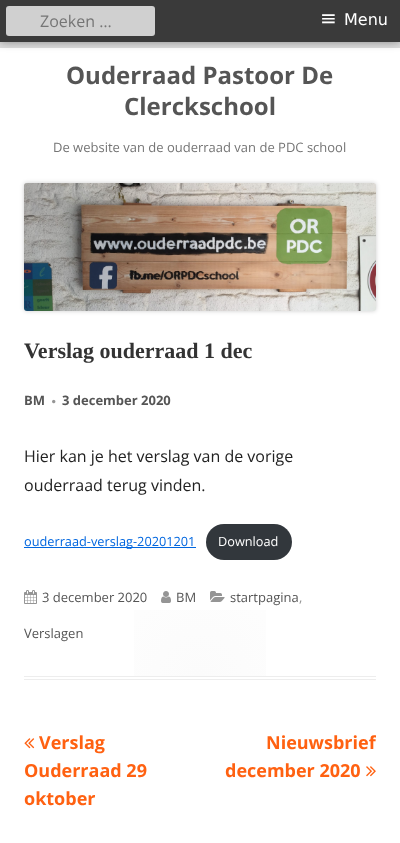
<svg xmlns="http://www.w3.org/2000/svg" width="400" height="843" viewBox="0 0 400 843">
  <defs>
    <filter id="blur1" x="-50%" y="-200%" width="200%" height="500%"><feGaussianBlur stdDeviation="5"/></filter>
    <filter id="blur2" x="-50%" y="-200%" width="200%" height="500%"><feGaussianBlur stdDeviation="2"/></filter>
    <radialGradient id="g1" gradientUnits="userSpaceOnUse" cx="200" cy="676" r="176"><stop offset="0" stop-color="#fbfbfb"/><stop offset="1" stop-color="#ffffff"/></radialGradient>
    <clipPath id="clip1"><rect x="24" y="728" width="352" height="84"/></clipPath>
  </defs>
  <rect width="100%" height="100%" fill="#dddddd"/>
  <rect x="0" y="48" width="400" height="795" fill="#ffffff"/>
  <rect x="0" y="0" width="400" height="42" fill="#000000" fill-opacity="0.4" filter="url(#blur1)"/>
  <rect x="0" y="0" width="400" height="42" fill="#3a3a3a"/>
  <rect x="6" y="6" width="149" height="30" rx="3" fill="#d0d0d0"/>
  <text x="40" y="27" font-family="Open Sans" font-size="16" fill="#757575">Zoeken …</text>
  <text x="320" y="25" font-family="DejaVu Sans" font-size="20" fill="#ffffff">≡</text>
  <text x="344" y="25" font-family="DejaVu Sans" font-size="16" fill="#ffffff">Menu</text>
  <text x="66" y="84" font-family="Open Sans" font-size="24" font-weight="bold" fill="#555555">Ouderraad Pastoor De</text>
  <text x="124" y="115" font-family="Open Sans" font-size="24" font-weight="bold" fill="#555555">Clerckschool</text>
  <text x="53" y="152" font-family="Open Sans" font-size="13" fill="#757575">De website van de ouderraad van de PDC school</text>
  <rect x="24" y="183" width="352" height="128" rx="3" fill="#000000" fill-opacity="0.2" filter="url(#blur2)"/>
  <image x="24" y="183" width="352" height="128" href="img1.png"/>
  <rect x="134" y="610" width="132" height="66" fill="url(#g1)"/>
  <rect x="24" y="676" width="352" height="1" fill="#ededed"/>
  <rect x="24" y="679" width="352" height="1" fill="#ededed"/>
  <text x="24" y="358" font-family="Liberation Serif" font-size="22" font-weight="bold" fill="#333333">Verslag ouderraad 1 dec</text>
  <text x="24" y="405" font-family="Open Sans" font-size="13" font-weight="bold" fill="#555555">BM</text>
  <image x="52" y="399" width="4" height="5" href="img2.png"/>
  <text x="62" y="405" font-family="Open Sans" font-size="13" font-weight="bold" fill="#555555">3 december 2020</text>
  <text x="24" y="462" font-family="Open Sans" font-size="16" fill="#222222">Hier kan je het verslag van de vorige</text>
  <text x="24" y="491" font-family="Open Sans" font-size="16" fill="#222222">ouderraad terug vinden.</text>
  <rect x="24" y="547" width="172" height="1" fill="#0066df"/>
  <text x="24" y="546" font-family="Open Sans" font-size="12.75" fill="#0066df">ouderraad-verslag-20201201</text>
  <rect x="206" y="524" width="86" height="36" rx="18" fill="#32373c"/>
  <text x="218" y="546" font-family="Open Sans" font-size="12.75" fill="#ffffff">Download</text>
  <image x="210" y="591" width="15" height="11" href="img3.png"/>
  <text x="230" y="602" font-family="Open Sans" font-size="13" fill="#555555">startpagina</text>
  <text x="299" y="602" font-family="Open Sans" font-size="13" fill="#959595">,</text>
  <text x="24" y="638" font-family="Open Sans" font-size="13" fill="#555555">Verslagen</text>
  <image x="24" y="590" width="13" height="14" href="img4.png"/>
  <text x="42" y="602" font-family="Open Sans" font-size="13" fill="#555555">3 december 2020</text>
  <image x="161" y="591" width="10" height="12" href="img5.png"/>
  <text x="176" y="602" font-family="Open Sans" font-size="13" fill="#555555">BM</text>
  <image x="24" y="738" width="11" height="11" href="img6.png"/>
  <text x="39" y="749" font-family="Open Sans" font-size="18" font-weight="bold" fill="#ff6111">Verslag</text>
  <text x="24" y="777" font-family="Open Sans" font-size="18" font-weight="bold" fill="#ff6111">Ouderraad 29</text>
  <text x="24" y="805" font-family="Open Sans" font-size="18" font-weight="bold" fill="#ff6111">oktober</text>
  <g clip-path="url(#clip1)">
    <text x="266" y="749" font-family="Open Sans" font-size="18" font-weight="bold" fill="#ff6111">Nieuwsbrief</text>
  </g>
  <text x="225" y="777" font-family="Open Sans" font-size="18" font-weight="bold" fill="#ff6111">december 2020</text>
  <image x="366" y="766" width="10" height="11" href="img7.png"/>
</svg>
